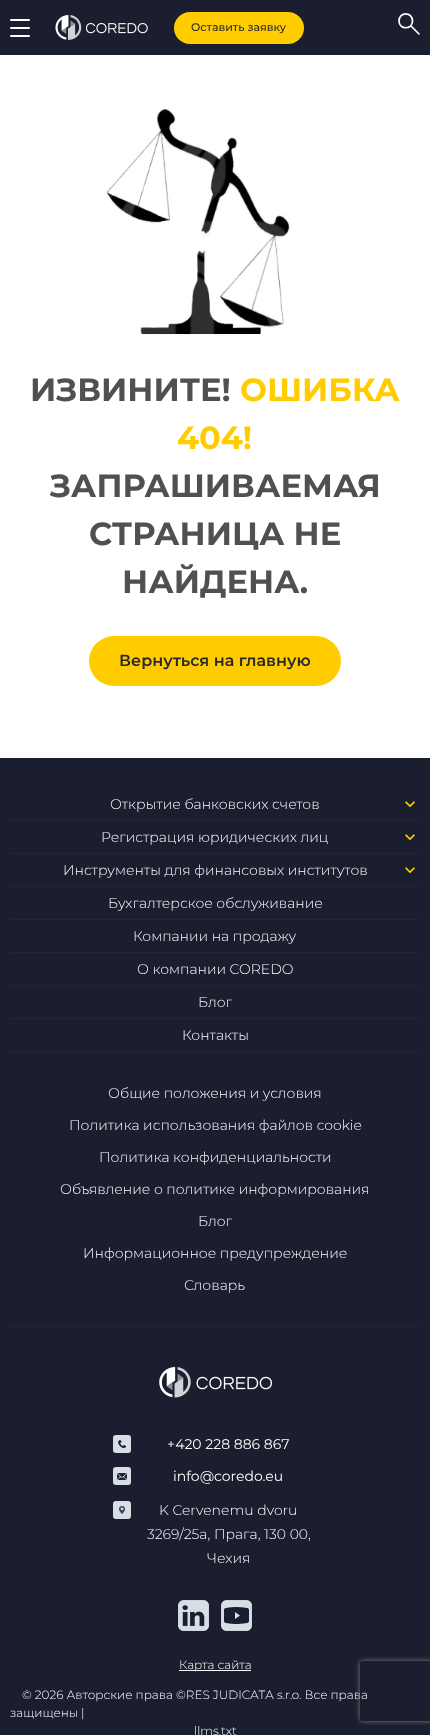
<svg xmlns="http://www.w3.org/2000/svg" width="430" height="1735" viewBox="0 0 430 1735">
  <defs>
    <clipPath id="clip1"><path d="M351 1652H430V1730H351ZM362 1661H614C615 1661 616 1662 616 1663V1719C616 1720 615 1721 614 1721H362C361 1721 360 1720 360 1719V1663C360 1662 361 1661 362 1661Z" clip-rule="evenodd"/></clipPath>
    <filter id="blur1" x="-50%" y="-200%" width="200%" height="500%"><feGaussianBlur stdDeviation="2.5"/></filter>
  </defs>
  <rect width="100%" height="100%" fill="#ffffff"/>
  <rect x="0" y="0" width="430" height="55" fill="#1a1e2e"/>
  <rect x="10" y="19" width="20" height="2" rx="1" fill="#ffffff"/>
  <rect x="10" y="27" width="20" height="2" rx="1" fill="#ffffff"/>
  <rect x="10" y="35" width="20" height="2" rx="1" fill="#ffffff"/>
  <image x="55" y="15" width="93" height="25" href="img1.png"/>
  <rect x="174" y="12" width="130" height="32" rx="16" fill="#ffcc00"/>
  <text x="191" y="31" font-family="Montserrat" font-size="11" font-weight="500" fill="#292929">Оставить заявку</text>
  <path d="M419 34L411.5 26.5M412.5 21C412.5 30 399 30 399 21C399 11.5 412.5 11.5 412.5 21Z" fill="none" stroke="#ffffff" stroke-width="1.7" stroke-linecap="round"/>
  <image x="106" y="109" width="184" height="226" href="img2.png"/>
  <text x="30" y="401" font-family="Montserrat" font-size="32" font-weight="bold" fill="#505050">ИЗВИНИТЕ!</text>
  <text x="240" y="401" font-family="Montserrat" font-size="32" font-weight="bold" fill="#ffcc00">ОШИБКА</text>
  <text x="177" y="449" font-family="Montserrat" font-size="32" font-weight="bold" fill="#ffcc00">404!</text>
  <text x="50" y="497" font-family="Montserrat" font-size="32" font-weight="bold" fill="#505050">ЗАПРАШИВАЕМАЯ</text>
  <text x="89" y="545" font-family="Montserrat" font-size="32" font-weight="bold" fill="#505050">СТРАНИЦА НЕ</text>
  <text x="122" y="593" font-family="Montserrat" font-size="32" font-weight="bold" fill="#505050">НАЙДЕНА.</text>
  <rect x="89" y="636" width="252" height="50" rx="25" fill="#ffcc00"/>
  <text x="119" y="666" font-family="Montserrat" font-size="16" font-weight="600" fill="#292929">Вернуться на главную</text>
  <rect x="0" y="758" width="430" height="977" fill="#1a1e2e"/>
  <rect x="10" y="820" width="410" height="1" fill="#222636"/>
  <text x="110" y="809" font-family="Montserrat" font-size="14" font-weight="300" fill="#ffffff">Открытие банковских счетов</text>
  <image x="405" y="801" width="10" height="7" href="img3.png"/>
  <rect x="10" y="853" width="410" height="1" fill="#222636"/>
  <text x="101" y="842" font-family="Montserrat" font-size="14" font-weight="300" fill="#ffffff">Регистрация юридических лиц</text>
  <image x="405" y="834" width="10" height="7" href="img3.png"/>
  <rect x="10" y="886" width="410" height="1" fill="#222636"/>
  <text x="63" y="875" font-family="Montserrat" font-size="14" font-weight="300" fill="#ffffff">Инструменты для финансовых институтов</text>
  <image x="405" y="867" width="10" height="7" href="img3.png"/>
  <rect x="10" y="919" width="410" height="1" fill="#222636"/>
  <text x="108" y="908" font-family="Montserrat" font-size="14" font-weight="300" fill="#ffffff">Бухгалтерское обслуживание</text>
  <rect x="10" y="952" width="410" height="1" fill="#222636"/>
  <text x="133" y="941" font-family="Montserrat" font-size="14" font-weight="300" fill="#ffffff">Компании на продажу</text>
  <rect x="10" y="985" width="410" height="1" fill="#222636"/>
  <text x="137" y="974" font-family="Montserrat" font-size="14" font-weight="300" fill="#ffffff">О компании COREDO</text>
  <rect x="10" y="1018" width="410" height="1" fill="#222636"/>
  <text x="198" y="1007" font-family="Montserrat" font-size="14" font-weight="300" fill="#ffffff">Блог</text>
  <rect x="10" y="1051" width="410" height="1" fill="#222636"/>
  <text x="182" y="1040" font-family="Montserrat" font-size="14" font-weight="300" fill="#ffffff">Контакты</text>
  <rect x="10" y="1326" width="410" height="1" fill="#222636"/>
  <text x="108" y="1098" font-family="Montserrat" font-size="14" font-weight="300" fill="#ffffff">Общие положения и условия</text>
  <text x="69" y="1130" font-family="Montserrat" font-size="14" font-weight="300" fill="#ffffff">Политика использования файлов cookie</text>
  <text x="99" y="1162" font-family="Montserrat" font-size="14" font-weight="300" fill="#ffffff">Политика конфиденциальности</text>
  <text x="60" y="1194" font-family="Montserrat" font-size="14" font-weight="300" fill="#ffffff">Объявление о политике информирования</text>
  <text x="198" y="1226" font-family="Montserrat" font-size="14" font-weight="300" fill="#ffffff">Блог</text>
  <text x="83" y="1258" font-family="Montserrat" font-size="14" font-weight="300" fill="#ffffff">Информационное предупреждение</text>
  <text x="184" y="1290" font-family="Montserrat" font-size="14" font-weight="300" fill="#ffffff">Словарь</text>
  <image x="159" y="1367" width="114" height="31" href="img4.png"/>
  <rect x="113" y="1435" width="18" height="18" rx="3" fill="#d7dee4"/>
  <image x="118" y="1440" width="8" height="8" href="img5.png"/>
  <text x="167" y="1449" font-family="Montserrat" font-size="14" fill="#ffffff">+420 228 886 867</text>
  <rect x="113" y="1467" width="18" height="18" rx="3" fill="#d7dee4"/>
  <image x="117" y="1473" width="10" height="7" href="img6.png"/>
  <text x="173" y="1481" font-family="Montserrat" font-size="14" fill="#ffffff">info@coredo.eu</text>
  <rect x="113" y="1501" width="18" height="18" rx="3" fill="#d7dee4"/>
  <image x="119" y="1506" width="6" height="8" href="img7.png"/>
  <text x="159" y="1515" font-family="Montserrat" font-size="14" font-weight="300" fill="#ffffff">K Cervenemu dvoru</text>
  <text x="147" y="1539" font-family="Montserrat" font-size="14" font-weight="300" fill="#ffffff">3269/25a, Прага, 130 00,</text>
  <text x="207" y="1563" font-family="Montserrat" font-size="14" font-weight="300" fill="#ffffff">Чехия</text>
  <image x="178" y="1600" width="31" height="31" href="img8.png"/>
  <image x="221" y="1600" width="31" height="31" href="img9.png"/>
  <rect x="179" y="1670" width="72" height="1" fill="#ffffff"/>
  <text x="179" y="1669" font-family="Montserrat" font-size="12" font-weight="300" fill="#ffffff">Карта сайта</text>
  <text x="22" y="1699" font-family="Montserrat" font-size="12" font-weight="300" fill="#ffffff">© 2026 Авторские права ©RES JUDICATA s.r.o. Все права</text>
  <text x="10" y="1717" font-family="Montserrat" font-size="12" font-weight="300" fill="#ffffff">защищены |</text>
  <text x="194" y="1735" font-family="Montserrat" font-size="12" font-weight="300" fill="#ffffff">llms.txt</text>
  <g clip-path="url(#clip1)">
    <rect x="360" y="1661" width="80" height="60" rx="2" fill="#808080" filter="url(#blur1)"/>
  </g>
</svg>
